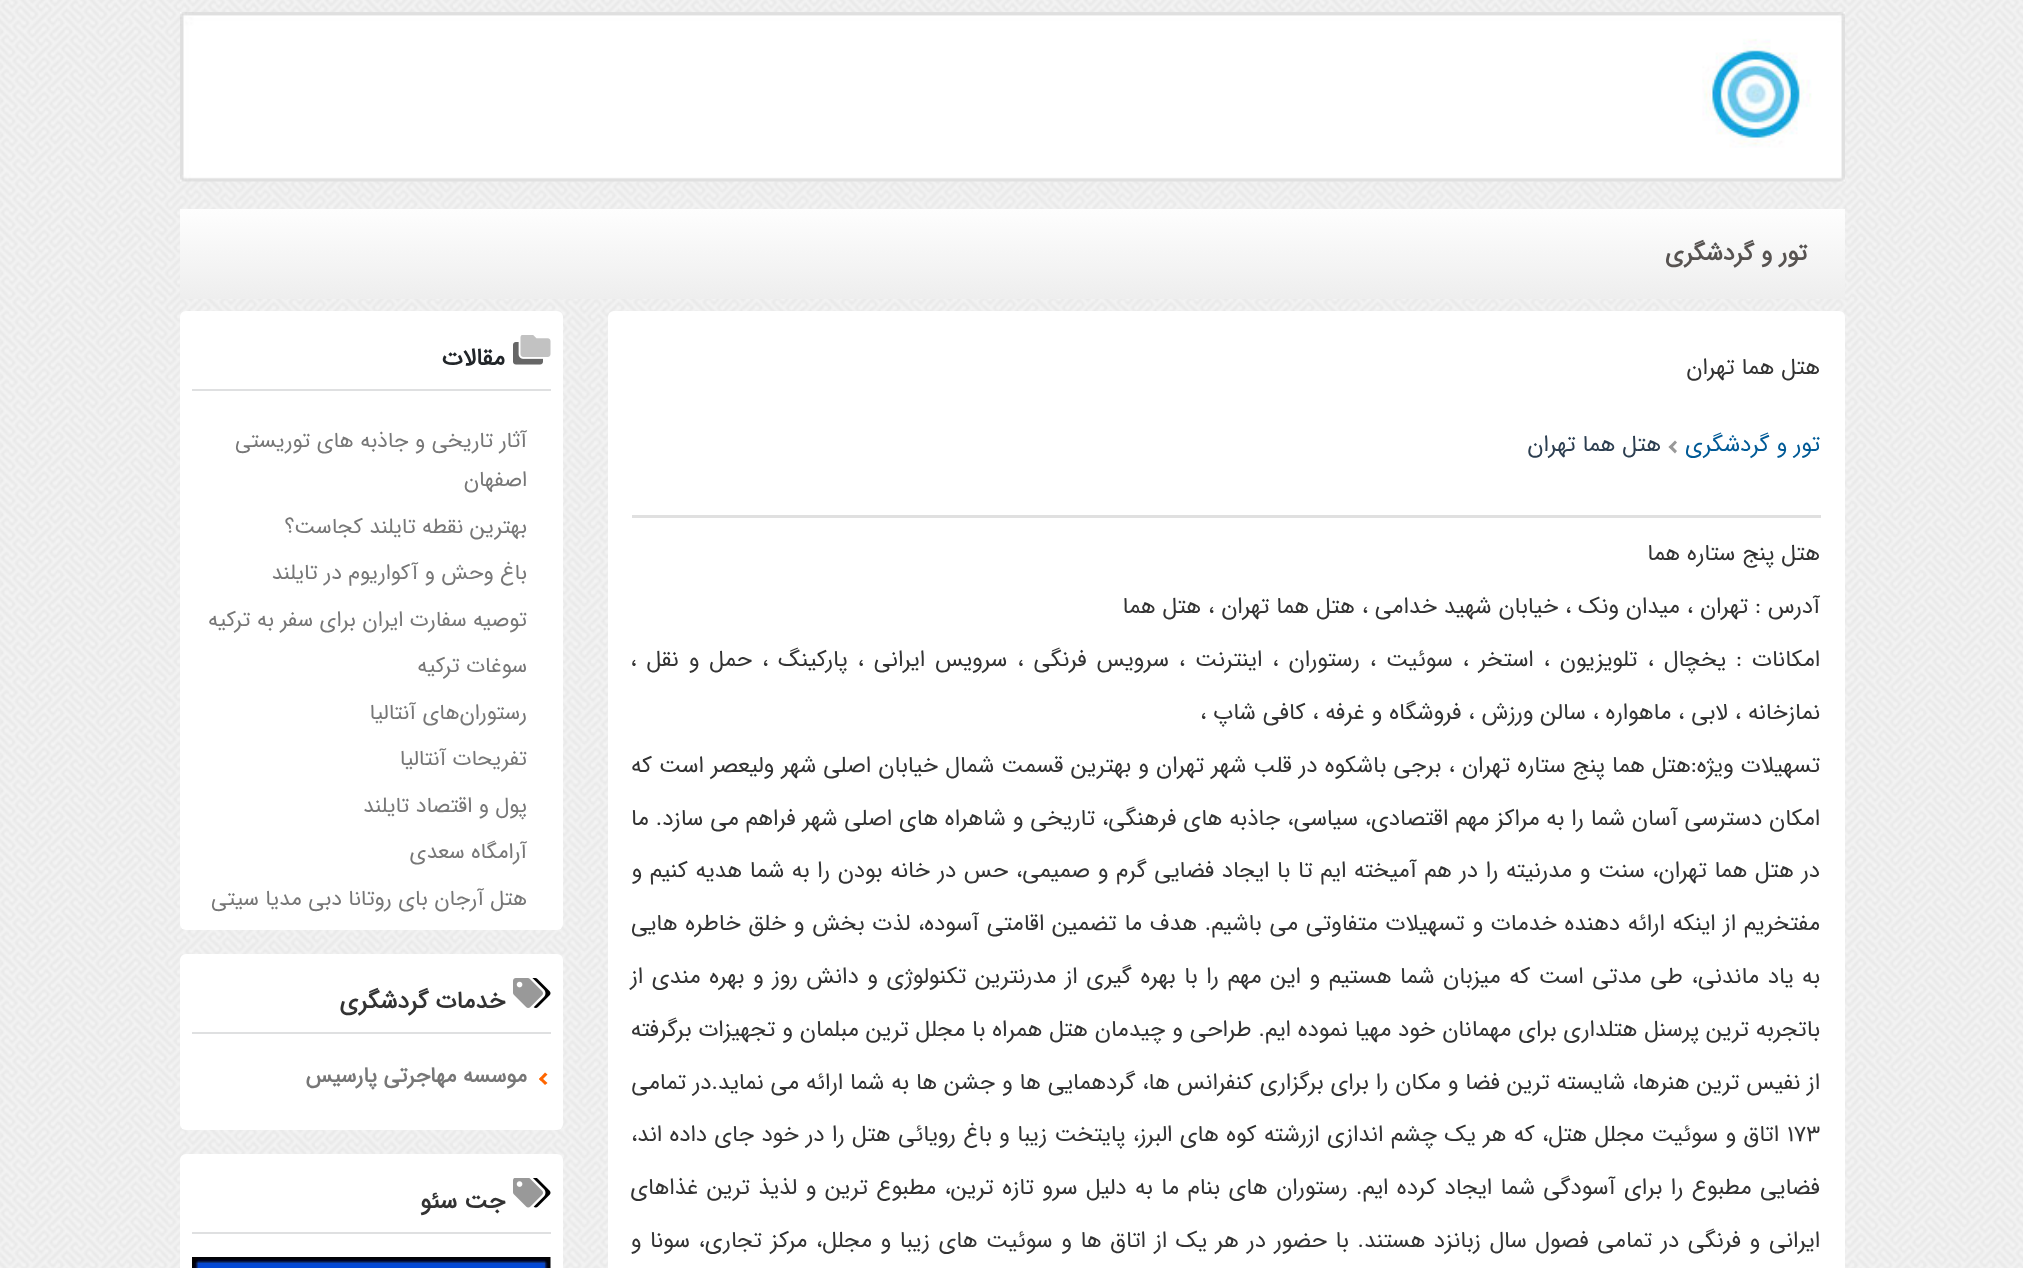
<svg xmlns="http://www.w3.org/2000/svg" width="2023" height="1268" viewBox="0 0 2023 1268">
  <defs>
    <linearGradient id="g1" gradientUnits="userSpaceOnUse" x1="1013" y1="208" x2="1013" y2="299"><stop offset="0" stop-color="#fefefe"/><stop offset="1" stop-color="#eeeeee"/></linearGradient>
  </defs>
  <rect width="100%" height="100%" fill="#ffffff"/>
  <image x="0" y="0" width="2023" height="1268" href="img1.png"/>
  <image x="180" y="12" width="1665" height="170" href="img2.png"/>
  <rect x="180" y="209" width="1665" height="90" fill="url(#g1)"/>
  <text x="1807" y="260" font-family="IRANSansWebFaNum" font-size="24" font-weight="bold" direction="rtl" fill="#575351">تور و گردشگری</text>
  <rect x="608" y="311" width="1237" height="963" rx="6" fill="#ffffff"/>
  <rect x="632" y="515" width="1189" height="3" fill="#e0e0e0"/>
  <text x="1820" y="374" font-family="IRANSansWebFaNum" font-size="22.8" direction="rtl" fill="#333333">هتل هما تهران</text>
  <text x="1820" y="451" font-family="IRANSansWebFaNum" font-size="22.8" direction="rtl" fill="#005a96">تور و گردشگری</text>
  <path d="M1671 445L1677 451L1675 453.5L1668.5 447Z" fill="#999999"/>
  <path d="M1675 440.5L1677 442.5L1671 449L1668.5 447Z" fill="#999999"/>
  <text x="1661" y="451" font-family="IRANSansWebFaNum" font-size="22.8" direction="rtl" fill="#2c3e50">هتل هما تهران</text>
  <text x="1820" y="560" font-family="IRANSansWebFaNum" font-size="22.8" direction="rtl" fill="#333333">هتل پنج ستاره هما</text>
  <text x="1820" y="613" font-family="IRANSansWebFaNum" font-size="22.8" direction="rtl" fill="#333333">آدرس : تهران ، ميدان ونک ، خيابان شهيد خدامی ، هتل هما تهران ، هتل هما</text>
  <text x="1820" y="666" word-spacing="3.1" font-family="IRANSansWebFaNum" font-size="22.8" direction="rtl" fill="#333333">امكانات : یخچال ، تلویزیون ، استخر ، سوئیت ، رستوران ، اینترنت ، سرویس فرنگی ، سرویس ایرانی ، پاركینگ ، حمل و نقل ،</text>
  <text x="1820" y="719" font-family="IRANSansWebFaNum" font-size="22.8" direction="rtl" fill="#333333">نمازخانه ، لابی ، ماهواره ، سالن ورزش ، فروشگاه و غرفه ، كافی شاپ ،</text>
  <text x="1820" y="772" word-spacing="0.25" font-family="IRANSansWebFaNum" font-size="22.8" direction="rtl" fill="#333333">تسهیلات ویژه:هتل هما پنج ستاره تهران ، برجي باشكوه در قلب شهر تهران و بهترين قسمت شمال خيابان اصلي شهر وليعصر است كه</text>
  <text x="1820" y="825" font-family="IRANSansWebFaNum" font-size="22.8" direction="rtl" fill="#333333">امكان دسترسي آسان شما را به مراكز مهم اقتصادي، سياسي، جاذبه هاي فرهنگي، تاريخي و شاهراه هاي اصلي شهر فراهم مي سازد. ما</text>
  <text x="1820" y="877" word-spacing="0.8" font-family="IRANSansWebFaNum" font-size="22.8" direction="rtl" fill="#333333">در هتل هما تهران، سنت و مدرنيته را در هم آميخته ايم تا با ايجاد فضايي گرم و صميمي، حس در خانه بودن را به شما هديه كنيم و</text>
  <text x="1820" y="930" word-spacing="0.8" font-family="IRANSansWebFaNum" font-size="22.8" direction="rtl" fill="#333333">مفتخريم از اينكه ارائه دهنده خدمات و تسهيلات متفاوتي مي باشيم. هدف ما تضمين اقامتي آسوده، لذت بخش و خلق خاطره هايي</text>
  <text x="1820" y="983" word-spacing="1.75" font-family="IRANSansWebFaNum" font-size="22.8" direction="rtl" fill="#333333">به ياد ماندني، طي مدتي است كه ميزبان شما هستيم و اين مهم را با بهره گيري از مدرنترين تكنولوژي و دانش روز و بهره مندي از</text>
  <text x="1820" y="1036" font-family="IRANSansWebFaNum" font-size="22.8" direction="rtl" fill="#333333">باتجربه ترين پرسنل هتلداري براي مهمانان خود مهيا نموده ايم. طراحي و چيدمان هتل همراه با مجلل ترين مبلمان و تجهيزات برگرفته</text>
  <text x="1820" y="1089" font-family="IRANSansWebFaNum" font-size="22.8" direction="rtl" fill="#333333">از نفيس ترين هنرها، شايسته ترين فضا و مكان را براي برگزاري كنفرانس ها، گردهمايي ها و جشن ها به شما ارائه مي نمايد.در تمامي</text>
  <text x="1787" y="1141" font-family="IRANSansWebFaNum" font-size="22.8" fill="#333333">173</text>
  <text x="1779" y="1141" word-spacing="0.5" font-family="IRANSansWebFaNum" font-size="22.8" direction="rtl" fill="#333333">اتاق و سوئيت مجلل هتل، كه هر يك چشم اندازي ازرشته كوه هاي البرز، پايتخت زيبا و باغ رويائي هتل را در خود جاي داده اند،</text>
  <text x="1820" y="1194" word-spacing="1.6" font-family="IRANSansWebFaNum" font-size="22.8" direction="rtl" fill="#333333">فضايي مطبوع را براي آسودگي شما ايجاد كرده ايم. رستوران هاي بنام ما به دليل سرو تازه ترين، مطبوع ترين و لذيذ ترين غذاهاي</text>
  <text x="1820" y="1247" word-spacing="1.7" font-family="IRANSansWebFaNum" font-size="22.8" direction="rtl" fill="#333333">ايراني و فرنگي در تمامي فصول سال زبانزد هستند. با حضور در هر يك از اتاق ها و سوئيت هاي زيبا و مجلل، مركز تجاري، سونا و</text>
  <rect x="180" y="311" width="383" height="619" rx="6" fill="#ffffff"/>
  <image x="513" y="335" width="38" height="30" href="img3.png"/>
  <text x="505" y="365" font-family="IRANSansWebFaNum" font-size="24" font-weight="bold" direction="rtl" fill="#212529">مقالات</text>
  <rect x="192" y="389" width="359" height="2" fill="#dfe0e1"/>
  <text x="527" y="447" font-family="IRANSansWebFaNum" font-size="21.6" direction="rtl" fill="#777777">آثار تاريخي و جاذبه هاي توريستي</text>
  <text x="527" y="486" font-family="IRANSansWebFaNum" font-size="21.6" direction="rtl" fill="#777777">اصفهان</text>
  <text x="527" y="533" font-family="IRANSansWebFaNum" font-size="21.6" direction="rtl" fill="#777777">بهترین نقطه تایلند کجاست؟</text>
  <text x="527" y="579" font-family="IRANSansWebFaNum" font-size="21.6" direction="rtl" fill="#777777">باغ وحش و آکواریوم در تایلند</text>
  <text x="527" y="626" font-family="IRANSansWebFaNum" font-size="21.6" direction="rtl" fill="#777777">توصیه سفارت ایران برای سفر به ترکیه</text>
  <text x="527" y="672" font-family="IRANSansWebFaNum" font-size="21.6" direction="rtl" fill="#777777">سوغات ترکیه</text>
  <text x="527" y="719" font-family="IRANSansWebFaNum" font-size="21.6" direction="rtl" fill="#777777">رستوران‌هاي آنتاليا</text>
  <text x="527" y="765" font-family="IRANSansWebFaNum" font-size="21.6" direction="rtl" fill="#777777">تفریحات آنتالیا</text>
  <text x="527" y="812" font-family="IRANSansWebFaNum" font-size="21.6" direction="rtl" fill="#777777">پول و اقتصاد تایلند</text>
  <text x="527" y="858" font-family="IRANSansWebFaNum" font-size="21.6" direction="rtl" fill="#777777">آرامگاه سعدی</text>
  <text x="527" y="905" font-family="IRANSansWebFaNum" font-size="21.6" direction="rtl" fill="#777777">هتل آرجان بای روتانا دبی مدیا سیتی</text>
  <rect x="180" y="954" width="383" height="176" rx="6" fill="#ffffff"/>
  <image x="513" y="978" width="38" height="30" href="img4.png"/>
  <text x="505" y="1008" font-family="IRANSansWebFaNum" font-size="24" font-weight="bold" direction="rtl" fill="#333333">خدمات گردشگری</text>
  <rect x="192" y="1032" width="359" height="2" fill="#dfe0e1"/>
  <path d="M541 1077L547.5 1083L545 1085L539 1079Z" fill="#ff6600"/>
  <path d="M545 1072.5L547.5 1074.5L541 1081L539 1079Z" fill="#ff6600"/>
  <text x="527" y="1082" font-family="IRANSansWebFaNum" font-size="21.6" font-weight="bold" direction="rtl" fill="#777777">موسسه مهاجرتی پارسیس</text>
  <rect x="180" y="1154" width="383" height="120" rx="6" fill="#ffffff"/>
  <image x="513" y="1178" width="38" height="30" href="img5.png"/>
  <text x="505" y="1208" font-family="IRANSansWebFaNum" font-size="24" font-weight="bold" direction="rtl" fill="#333333">جت سئو</text>
  <rect x="192" y="1232" width="359" height="2" fill="#dfe0e1"/>
  <image x="192" y="1257" width="359" height="11" href="img6.png"/>
</svg>
